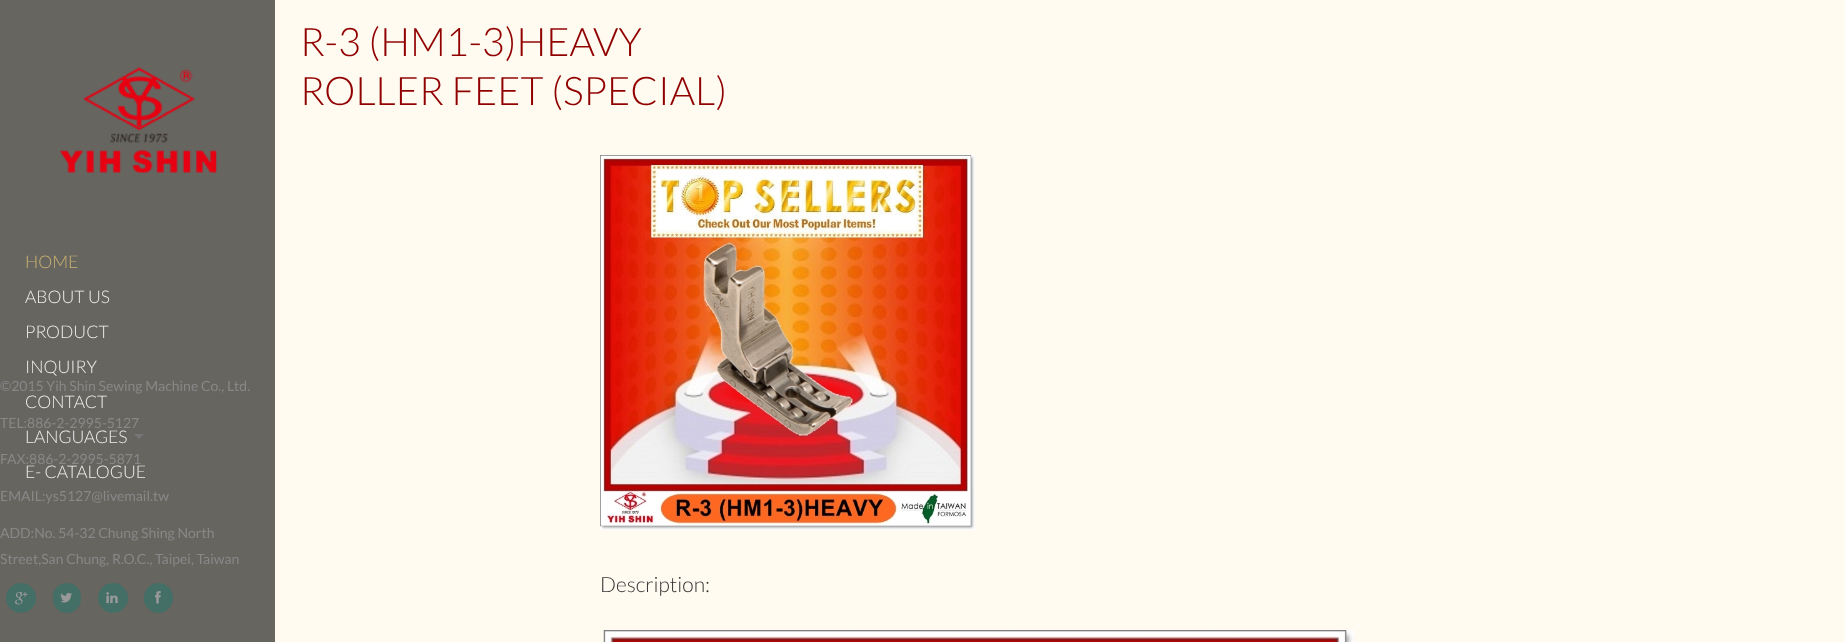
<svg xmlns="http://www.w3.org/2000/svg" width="1845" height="642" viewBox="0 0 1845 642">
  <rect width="100%" height="100%" fill="#fffbf1"/>
  <rect x="0" y="0" width="275" height="642" fill="#666560"/>
  <image x="60" y="67" width="157" height="106" href="img1.png"/>
  <text x="25" y="268" font-family="Lato" font-size="17.5" font-weight="300" fill="#cbb370">HOME</text>
  <text x="25" y="303" font-family="Lato" font-size="17.5" font-weight="300" fill="#eeeeee">ABOUT US</text>
  <text x="25" y="338" font-family="Lato" font-size="17.5" font-weight="300" fill="#eeeeee">PRODUCT</text>
  <text x="25" y="373" font-family="Lato" font-size="17.5" font-weight="300" fill="#eeeeee">INQUIRY</text>
  <text x="25" y="408" font-family="Lato" font-size="17.5" font-weight="300" fill="#eeeeee">CONTACT</text>
  <text x="25" y="443" font-family="Lato" font-size="17.5" font-weight="300" fill="#eeeeee">LANGUAGES</text>
  <path d="M134 434H144L139 439Z" fill="#777777"/>
  <text x="25" y="478" font-family="Lato" font-size="17.5" font-weight="300" fill="#eeeeee">E- CATALOGUE</text>
  <text x="0" y="391" font-family="Lato" font-size="14" fill="#888888">©2015 Yih Shin Sewing Machine Co., Ltd.</text>
  <text x="0" y="428" font-family="Lato" font-size="14" fill="#888888">TEL:886-2-2995-5127</text>
  <text x="0" y="464" font-family="Lato" font-size="14" fill="#888888">FAX:886-2-2995-5871</text>
  <text x="0" y="501" font-family="Lato" font-size="14" fill="#888888">EMAIL:ys5127@livemail.tw</text>
  <text x="0" y="538" font-family="Lato" font-size="14" fill="#888888">ADD:No. 54-32 Chung Shing North</text>
  <text x="0" y="564" font-family="Lato" font-size="14" fill="#888888">Street,San Chung, R.O.C., Taipei, Taiwan</text>
  <circle cx="21" cy="598" r="15" fill="#446f66"/>
  <image x="15" y="592" width="13" height="13" href="img2.png"/>
  <rect x="53" y="583" width="28" height="30" rx="14" fill="#446f66"/>
  <image x="60" y="593" width="12" height="10" href="img3.png"/>
  <circle cx="113" cy="598" r="15" fill="#446f66"/>
  <image x="106" y="592" width="12" height="12" href="img4.png"/>
  <rect x="144" y="583" width="29" height="30" rx="14.5" fill="#446f66"/>
  <image x="155" y="591" width="6" height="13" href="img5.png"/>
  <text x="300" y="56" font-family="Lato" font-size="39.4" font-weight="300" fill="#910000">R-3 (HM1-3)HEAVY</text>
  <text x="300" y="105" font-family="Lato" font-size="39.4" font-weight="300" fill="#910000">ROLLER FEET (SPECIAL)</text>
  <image x="600" y="155" width="375" height="375" href="img6.png"/>
  <text x="600" y="592" font-family="Lato" font-size="21" font-weight="300" fill="#333333">Description:</text>
  <image x="603" y="630" width="751" height="12" href="img7.png"/>
</svg>
